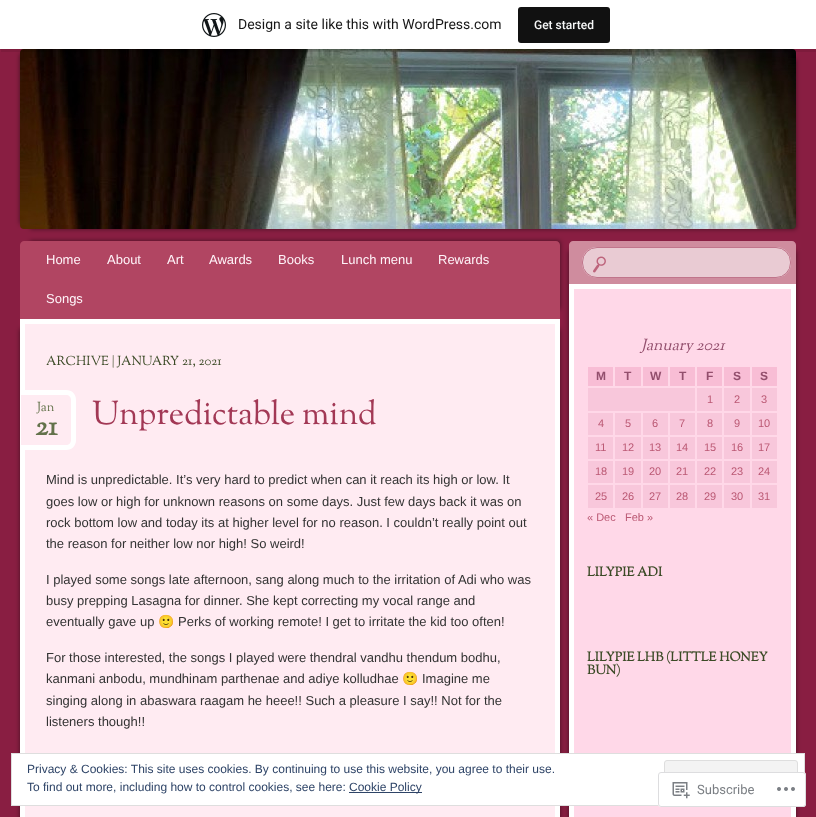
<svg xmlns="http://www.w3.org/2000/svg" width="816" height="817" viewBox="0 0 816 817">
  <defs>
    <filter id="blur1" x="-50%" y="-200%" width="200%" height="500%"><feGaussianBlur stdDeviation="2.5"/></filter>
  </defs>
  <rect width="100%" height="100%" fill="#891e42"/>
  <rect x="20" y="54" width="766" height="170" fill="#000000" fill-opacity="0.5" filter="url(#blur1)"/>
  <rect x="30" y="59" width="766" height="170" fill="#000000" fill-opacity="0.5" filter="url(#blur1)"/>
  <image x="20" y="49" width="776" height="180" href="img2.png"/>
  <path d="M1 49V52H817V3H816V49Z" fill="#000000" fill-opacity="0.08"/>
  <rect x="0" y="0" width="816" height="49" fill="#ffffff"/>
  <image x="202" y="13" width="24" height="24" href="img1.png"/>
  <text x="238" y="29" font-family="Roboto" font-size="14" fill="#171717">Design a site like this with WordPress.com</text>
  <rect x="518" y="7" width="92" height="36" rx="3" fill="#111111"/>
  <text x="534" y="29" font-family="Roboto" font-size="12" font-weight="500" fill="#f6f7f7">Get started</text>
  <rect x="30" y="241" width="530" height="68" fill="#000000" fill-opacity="0.5" filter="url(#blur1)"/>
  <path d="M24 241H556C558 241 560 243 560 245V319H20V245C20 243 22 241 24 241Z" fill="#b14562"/>
  <text x="46" y="264" font-family="Liberation Sans" font-size="13" fill="#fff4f9">Home</text>
  <text x="107" y="264" font-family="Liberation Sans" font-size="13" fill="#fff4f9">About</text>
  <text x="167" y="264" font-family="Liberation Sans" font-size="13" fill="#fff4f9">Art</text>
  <text x="209" y="264" font-family="Liberation Sans" font-size="13" fill="#fff4f9">Awards</text>
  <text x="278" y="264" font-family="Liberation Sans" font-size="13" fill="#fff4f9">Books</text>
  <text x="341" y="264" font-family="Liberation Sans" font-size="13" fill="#fff4f9">Lunch menu</text>
  <text x="438" y="264" font-family="Liberation Sans" font-size="13" fill="#fff4f9">Rewards</text>
  <text x="46" y="303" font-family="Liberation Sans" font-size="13" fill="#fff4f9">Songs</text>
  <rect x="20" y="329" width="530" height="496" fill="#000000" fill-opacity="0.5" filter="url(#blur1)"/>
  <rect x="30" y="329" width="530" height="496" fill="#000000" fill-opacity="0.5" filter="url(#blur1)"/>
  <rect x="22.5" y="321.5" width="535" height="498" fill="#ffebf2" stroke="#ffffff" stroke-width="5"/>
  <text x="46" y="365" font-family="Sorts Mill Goudy" font-size="13" fill="#3b4a26">ARCHIVE | JANUARY 21, 2021</text>
  <path d="M21 395H66C69 395 71 397 71 400V440C71 443 69 445 66 445H21Z" fill="#ffebf2"/>
  <path d="M21 390H66C72 390 76 394 76 400V440C76 446 72 450 66 450H21ZM21 395H66C69 395 71 397 71 400V440C71 443 69 445 66 445H21Z" fill="#ffffff" fill-rule="evenodd"/>
  <text x="37" y="411" font-family="Sorts Mill Goudy" font-size="13" fill="#63724b">Jan</text>
  <text x="35" y="435" font-family="Sorts Mill Goudy" font-size="28" font-weight="bold" fill="#63724b">21</text>
  <text x="92" y="424" font-family="Sorts Mill Goudy" font-size="33" fill="#a23855">Unpredictable mind</text>
  <text x="46" y="484" font-family="Liberation Sans" font-size="13" fill="#333333">Mind is unpredictable. It’s very hard to predict when can it reach its high or low. It</text>
  <text x="46" y="506" font-family="Liberation Sans" font-size="13" fill="#333333">goes low or high for unknown reasons on some days. Just few days back it was on</text>
  <text x="46" y="527" font-family="Liberation Sans" font-size="13" fill="#333333">rock bottom low and today its at higher level for no reason. I couldn’t really point out</text>
  <text x="46" y="548" font-family="Liberation Sans" font-size="13" fill="#333333">the reason for neither low nor high! So weird!</text>
  <text x="46" y="584" font-family="Liberation Sans" font-size="13" fill="#333333">I played some songs late afternoon, sang along much to the irritation of Adi who was</text>
  <text x="46" y="605" font-family="Liberation Sans" font-size="13" fill="#333333">busy prepping Lasagna for dinner. She kept correcting my vocal range and</text>
  <text x="46" y="626" font-family="Liberation Sans" font-size="13" fill="#333333">eventually gave up</text>
  <text x="158" y="626" font-family="Noto Color Emoji" font-size="13" fill="#333333">🙂</text>
  <text x="178" y="626" font-family="Liberation Sans" font-size="13" fill="#333333">Perks of working remote! I get to irritate the kid too often!</text>
  <text x="46" y="662" font-family="Liberation Sans" font-size="13" fill="#333333">For those interested, the songs I played were thendral vandhu thendum bodhu,</text>
  <text x="46" y="683" font-family="Liberation Sans" font-size="13" fill="#333333">kanmani anbodu, mundhinam parthenae and adiye kolludhae</text>
  <text x="402" y="683" font-family="Noto Color Emoji" font-size="13" fill="#333333">🙂</text>
  <text x="422" y="683" font-family="Liberation Sans" font-size="13" fill="#333333">Imagine me</text>
  <text x="46" y="705" font-family="Liberation Sans" font-size="13" fill="#333333">singing along in abaswara raagam he heee!! Such a pleasure I say!! Not for the</text>
  <text x="46" y="726" font-family="Liberation Sans" font-size="13" fill="#333333">listeners though!!</text>
  <rect x="569" y="251" width="217" height="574" fill="#000000" fill-opacity="0.5" filter="url(#blur1)"/>
  <rect x="579" y="251" width="217" height="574" fill="#000000" fill-opacity="0.5" filter="url(#blur1)"/>
  <path d="M573 241H792C794 241 796 243 796 245V284H569V245C569 243 571 241 573 241Z" fill="#cf8c9e"/>
  <rect x="582" y="247" width="209" height="31" rx="15" fill="#e9cbd3"/>
  <image x="593" y="256" width="13" height="17" href="img3.png"/>
  <rect x="582.5" y="247.5" width="208" height="30" rx="14.5" fill="none" stroke="#c0758b"/>
  <rect x="571.5" y="286.5" width="222" height="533" fill="#ffd8e8" stroke="#ffffff" stroke-width="5"/>
  <text x="641" y="350" font-family="Sorts Mill Goudy" font-size="16" font-style="italic" fill="#934f6d">January 2021</text>
  <rect x="588" y="367" width="25" height="19" fill="#f8bdd5"/>
  <text x="596" y="380" font-family="Liberation Sans" font-size="12" font-weight="bold" fill="#934f6d">M</text>
  <rect x="615" y="367" width="26" height="19" fill="#f8bdd5"/>
  <text x="624" y="380" font-family="Liberation Sans" font-size="12" font-weight="bold" fill="#934f6d">T</text>
  <rect x="643" y="367" width="25" height="19" fill="#f8bdd5"/>
  <text x="650" y="380" font-family="Liberation Sans" font-size="12" font-weight="bold" fill="#934f6d">W</text>
  <rect x="670" y="367" width="25" height="19" fill="#f8bdd5"/>
  <text x="679" y="380" font-family="Liberation Sans" font-size="12" font-weight="bold" fill="#934f6d">T</text>
  <rect x="697" y="367" width="25" height="19" fill="#f8bdd5"/>
  <text x="706" y="380" font-family="Liberation Sans" font-size="12" font-weight="bold" fill="#934f6d">F</text>
  <rect x="724" y="367" width="26" height="19" fill="#f8bdd5"/>
  <text x="733" y="380" font-family="Liberation Sans" font-size="12" font-weight="bold" fill="#934f6d">S</text>
  <rect x="752" y="367" width="25" height="19" fill="#f8bdd5"/>
  <text x="760" y="380" font-family="Liberation Sans" font-size="12" font-weight="bold" fill="#934f6d">S</text>
  <rect x="588" y="388" width="107" height="23" fill="#f8c7db"/>
  <rect x="697" y="388" width="25" height="23" fill="#f8c7db"/>
  <text x="707" y="403" font-family="Liberation Sans" font-size="11" fill="#bb5974">1</text>
  <rect x="724" y="388" width="26" height="23" fill="#f8c7db"/>
  <text x="734" y="403" font-family="Liberation Sans" font-size="11" fill="#bb5974">2</text>
  <rect x="752" y="388" width="25" height="23" fill="#f8c7db"/>
  <text x="761" y="403" font-family="Liberation Sans" font-size="11" fill="#bb5974">3</text>
  <rect x="588" y="413" width="25" height="22" fill="#f8c7db"/>
  <text x="598" y="427" font-family="Liberation Sans" font-size="11" fill="#bb5974">4</text>
  <rect x="615" y="413" width="26" height="22" fill="#f8c7db"/>
  <text x="625" y="427" font-family="Liberation Sans" font-size="11" fill="#bb5974">5</text>
  <rect x="643" y="413" width="25" height="22" fill="#f8c7db"/>
  <text x="652" y="427" font-family="Liberation Sans" font-size="11" fill="#bb5974">6</text>
  <rect x="670" y="413" width="25" height="22" fill="#f8c7db"/>
  <text x="679" y="427" font-family="Liberation Sans" font-size="11" fill="#bb5974">7</text>
  <rect x="697" y="413" width="25" height="22" fill="#f8c7db"/>
  <text x="707" y="427" font-family="Liberation Sans" font-size="11" fill="#bb5974">8</text>
  <rect x="724" y="413" width="26" height="22" fill="#f8c7db"/>
  <text x="734" y="427" font-family="Liberation Sans" font-size="11" fill="#bb5974">9</text>
  <rect x="752" y="413" width="25" height="22" fill="#f8c7db"/>
  <text x="758" y="427" font-family="Liberation Sans" font-size="11" fill="#bb5974">10</text>
  <rect x="588" y="437" width="25" height="22" fill="#f8c7db"/>
  <text x="595" y="451" font-family="Liberation Sans" font-size="11" fill="#bb5974">11</text>
  <rect x="615" y="437" width="26" height="22" fill="#f8c7db"/>
  <text x="622" y="451" font-family="Liberation Sans" font-size="11" fill="#bb5974">12</text>
  <rect x="643" y="437" width="25" height="22" fill="#f8c7db"/>
  <text x="649" y="451" font-family="Liberation Sans" font-size="11" fill="#bb5974">13</text>
  <rect x="670" y="437" width="25" height="22" fill="#f8c7db"/>
  <text x="676" y="451" font-family="Liberation Sans" font-size="11" fill="#bb5974">14</text>
  <rect x="697" y="437" width="25" height="22" fill="#f8c7db"/>
  <text x="704" y="451" font-family="Liberation Sans" font-size="11" fill="#bb5974">15</text>
  <rect x="724" y="437" width="26" height="22" fill="#f8c7db"/>
  <text x="731" y="451" font-family="Liberation Sans" font-size="11" fill="#bb5974">16</text>
  <rect x="752" y="437" width="25" height="22" fill="#f8c7db"/>
  <text x="758" y="451" font-family="Liberation Sans" font-size="11" fill="#bb5974">17</text>
  <rect x="588" y="461" width="25" height="22" fill="#f8c7db"/>
  <text x="595" y="475" font-family="Liberation Sans" font-size="11" fill="#bb5974">18</text>
  <rect x="615" y="461" width="26" height="22" fill="#f8c7db"/>
  <text x="622" y="475" font-family="Liberation Sans" font-size="11" fill="#bb5974">19</text>
  <rect x="643" y="461" width="25" height="22" fill="#f8c7db"/>
  <text x="649" y="475" font-family="Liberation Sans" font-size="11" fill="#bb5974">20</text>
  <rect x="670" y="461" width="25" height="22" fill="#f8c7db"/>
  <text x="676" y="475" font-family="Liberation Sans" font-size="11" fill="#bb5974">21</text>
  <rect x="697" y="461" width="25" height="22" fill="#f8c7db"/>
  <text x="704" y="475" font-family="Liberation Sans" font-size="11" fill="#bb5974">22</text>
  <rect x="724" y="461" width="26" height="22" fill="#f8c7db"/>
  <text x="731" y="475" font-family="Liberation Sans" font-size="11" fill="#bb5974">23</text>
  <rect x="752" y="461" width="25" height="22" fill="#f8c7db"/>
  <text x="758" y="475" font-family="Liberation Sans" font-size="11" fill="#bb5974">24</text>
  <rect x="588" y="485" width="25" height="23" fill="#f8c7db"/>
  <text x="595" y="500" font-family="Liberation Sans" font-size="11" fill="#bb5974">25</text>
  <rect x="615" y="485" width="26" height="23" fill="#f8c7db"/>
  <text x="622" y="500" font-family="Liberation Sans" font-size="11" fill="#bb5974">26</text>
  <rect x="643" y="485" width="25" height="23" fill="#f8c7db"/>
  <text x="649" y="500" font-family="Liberation Sans" font-size="11" fill="#bb5974">27</text>
  <rect x="670" y="485" width="25" height="23" fill="#f8c7db"/>
  <text x="676" y="500" font-family="Liberation Sans" font-size="11" fill="#bb5974">28</text>
  <rect x="697" y="485" width="25" height="23" fill="#f8c7db"/>
  <text x="704" y="500" font-family="Liberation Sans" font-size="11" fill="#bb5974">29</text>
  <rect x="724" y="485" width="26" height="23" fill="#f8c7db"/>
  <text x="731" y="500" font-family="Liberation Sans" font-size="11" fill="#bb5974">30</text>
  <rect x="752" y="485" width="25" height="23" fill="#f8c7db"/>
  <text x="758" y="500" font-family="Liberation Sans" font-size="11" fill="#bb5974">31</text>
  <text x="587" y="521" font-family="Liberation Sans" font-size="11" fill="#bb5974">« Dec</text>
  <text x="625" y="521" font-family="Liberation Sans" font-size="11" fill="#bb5974">Feb »</text>
  <text x="587" y="576" font-family="Sorts Mill Goudy" font-size="13" font-weight="bold" fill="#3b4a26">LILYPIE ADI</text>
  <text x="587" y="661" font-family="Sorts Mill Goudy" font-size="13" font-weight="bold" fill="#3b4a26">LILYPIE LHB (LITTLE HONEY</text>
  <text x="587" y="674" font-family="Sorts Mill Goudy" font-size="13" font-weight="bold" fill="#3b4a26">BUN)</text>
  <rect x="11.5" y="753.5" width="793" height="52" fill="#ffffff" stroke="#dedede"/>
  <text x="27" y="773" font-family="Liberation Sans" font-size="12" fill="#2e4467">Privacy &amp; Cookies: This site uses cookies. By continuing to use this website, you agree to their use.</text>
  <rect x="664.5" y="760.5" width="133" height="38" rx="2.5" fill="#f3f3f3" stroke="#dedede"/>
  <text x="27" y="791" font-family="Liberation Sans" font-size="12" fill="#2e4467">To find out more, including how to control cookies, see here:</text>
  <rect x="349" y="792" width="73" height="1" fill="#2e4467"/>
  <text x="349" y="791" font-family="Liberation Sans" font-size="12" fill="#2e4467">Cookie Policy</text>
  <rect x="658" y="772" width="148" height="35" rx="3" fill="#ffffff" fill-opacity="0.98"/>
  <rect x="658.5" y="772.5" width="147" height="34" rx="2.5" fill="none" stroke="#dcdcde" stroke-opacity="0.98"/>
  <image x="672" y="782" width="18" height="17" href="img4.png"/>
  <text x="697" y="794" font-family="Roboto" font-size="13" fill="#7b7f84">Subscribe</text>
  <image x="777" y="787" width="18" height="4" href="img5.png"/>
</svg>
